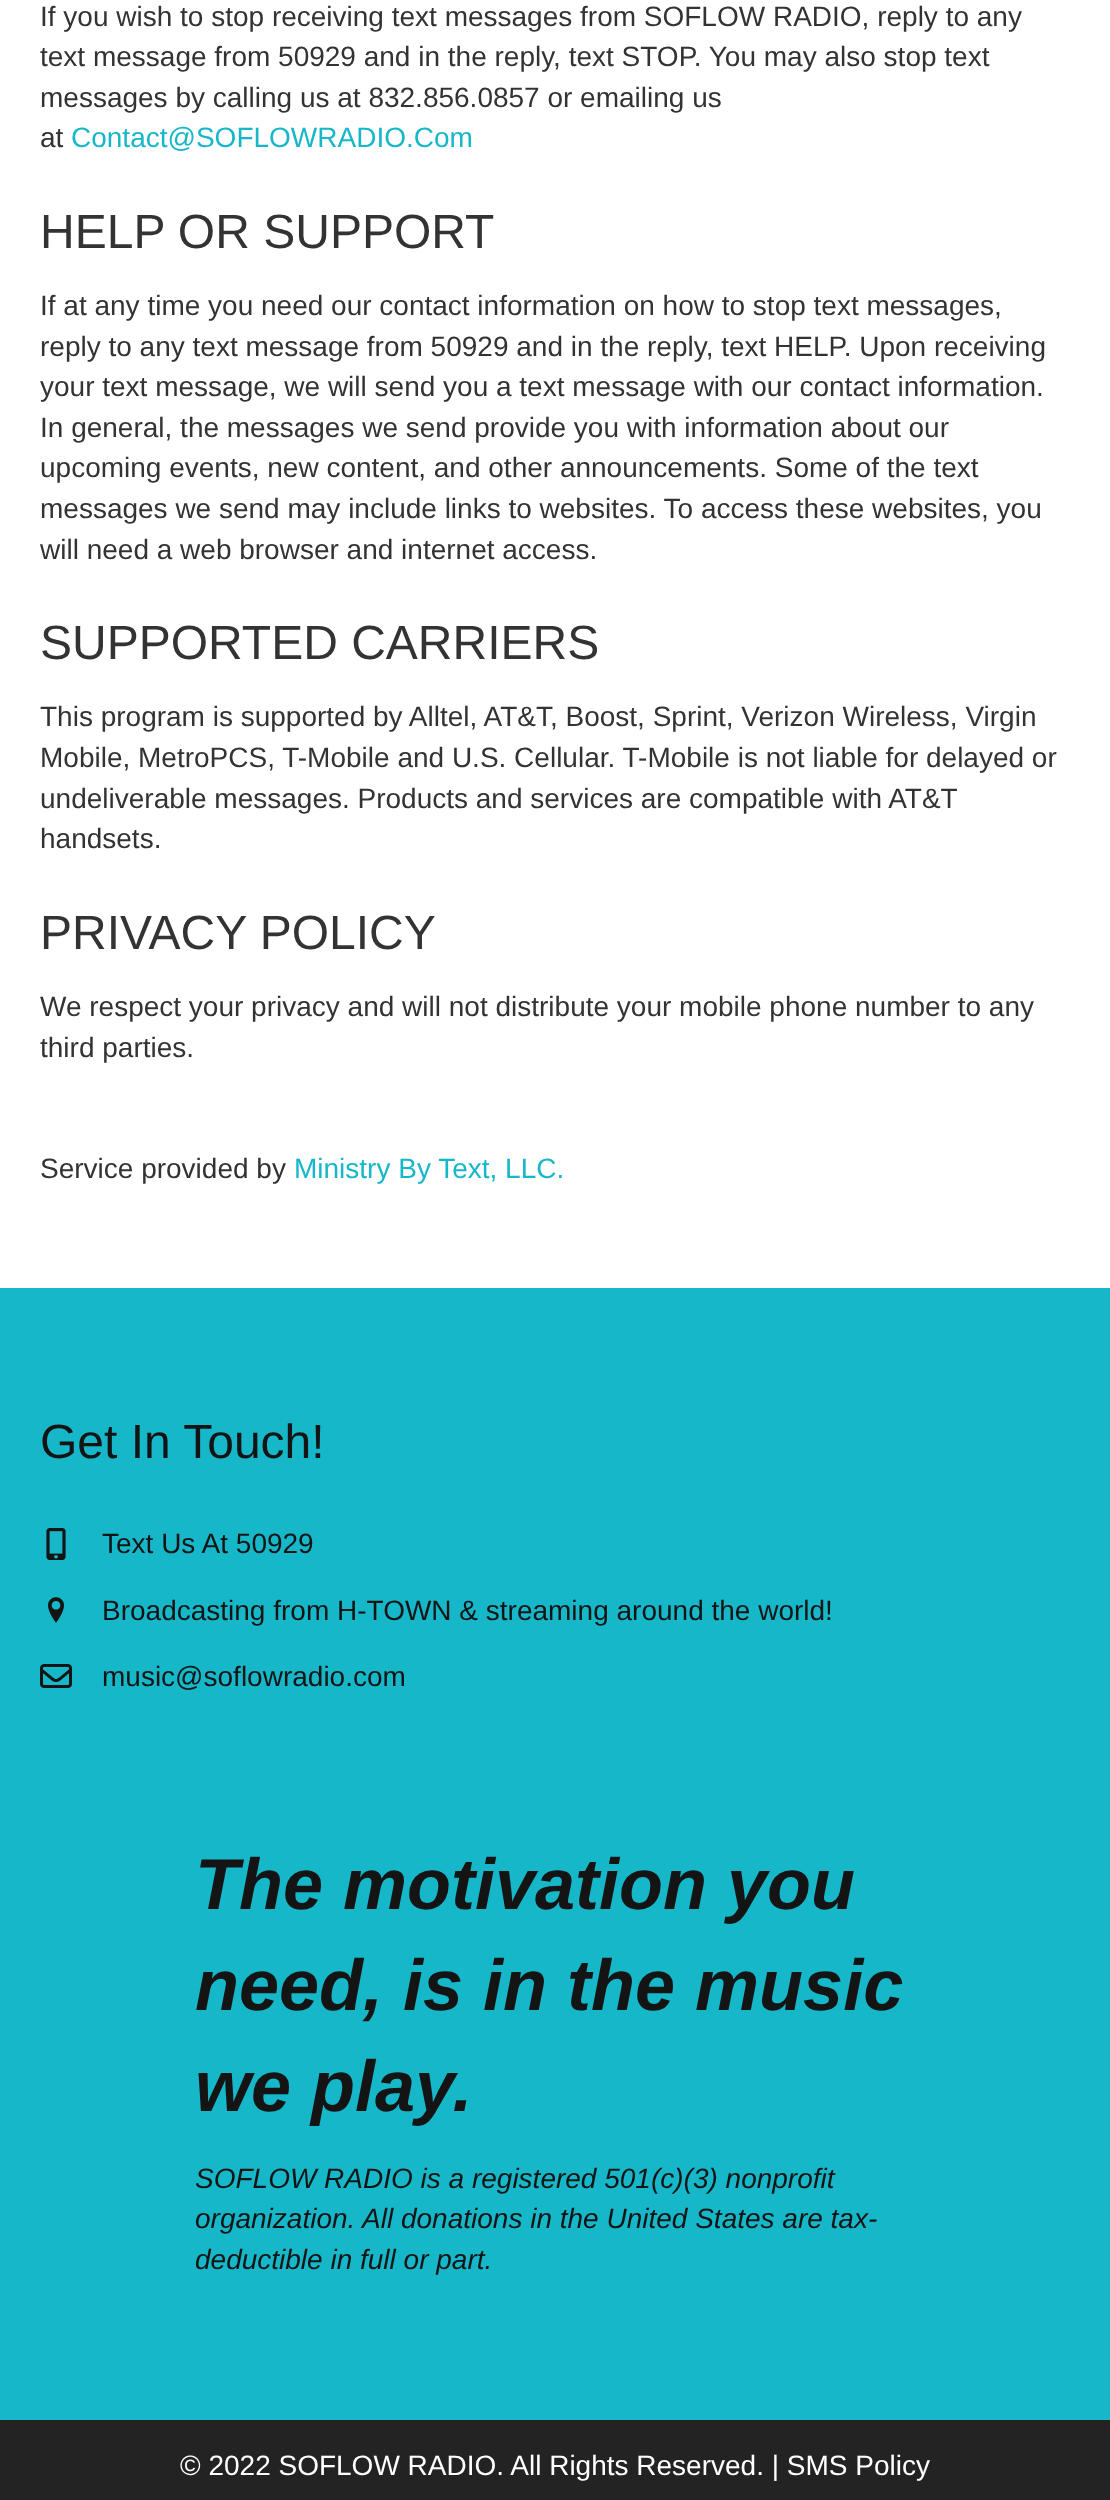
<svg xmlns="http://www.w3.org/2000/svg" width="1110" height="2500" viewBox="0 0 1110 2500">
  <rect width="100%" height="100%" fill="#ffffff"/>
  <text x="40" y="26" font-family="Liberation Sans" font-size="28" fill="#333333">If you wish to stop receiving text messages from SOFLOW RADIO, reply to any</text>
  <text x="40" y="66" font-family="Liberation Sans" font-size="28" fill="#333333">text message from 50929 and in the reply, text STOP. You may also stop text</text>
  <text x="40" y="107" font-family="Liberation Sans" font-size="28" fill="#333333">messages by calling us at 832.856.0857 or emailing us</text>
  <text x="40" y="147" font-family="Liberation Sans" font-size="28" fill="#333333">at</text>
  <text x="71" y="147" font-family="Liberation Sans" font-size="28" fill="#16b7c9">Contact@SOFLOWRADIO.Com</text>
  <text x="40" y="248" font-family="Liberation Sans" font-size="48" fill="#333333">HELP OR SUPPORT</text>
  <text x="40" y="315" font-family="Liberation Sans" font-size="28" fill="#333333">If at any time you need our contact information on how to stop text messages,</text>
  <text x="40" y="356" font-family="Liberation Sans" font-size="28" fill="#333333">reply to any text message from 50929 and in the reply, text HELP. Upon receiving</text>
  <text x="40" y="396" font-family="Liberation Sans" font-size="28" fill="#333333">your text message, we will send you a text message with our contact information.</text>
  <text x="40" y="437" font-family="Liberation Sans" font-size="28" fill="#333333">In general, the messages we send provide you with information about our</text>
  <text x="40" y="477" font-family="Liberation Sans" font-size="28" fill="#333333">upcoming events, new content, and other announcements. Some of the text</text>
  <text x="40" y="518" font-family="Liberation Sans" font-size="28" fill="#333333">messages we send may include links to websites. To access these websites, you</text>
  <text x="40" y="559" font-family="Liberation Sans" font-size="28" fill="#333333">will need a web browser and internet access.</text>
  <text x="40" y="659" font-family="Liberation Sans" font-size="48" fill="#333333">SUPPORTED CARRIERS</text>
  <text x="40" y="726" font-family="Liberation Sans" font-size="28" fill="#333333">This program is supported by Alltel, AT&amp;T, Boost, Sprint, Verizon Wireless, Virgin</text>
  <text x="40" y="767" font-family="Liberation Sans" font-size="28" fill="#333333">Mobile, MetroPCS, T-Mobile and U.S. Cellular. T-Mobile is not liable for delayed or</text>
  <text x="40" y="808" font-family="Liberation Sans" font-size="28" fill="#333333">undeliverable messages. Products and services are compatible with AT&amp;T</text>
  <text x="40" y="848" font-family="Liberation Sans" font-size="28" fill="#333333">handsets.</text>
  <text x="40" y="949" font-family="Liberation Sans" font-size="48" fill="#333333">PRIVACY POLICY</text>
  <text x="40" y="1016" font-family="Liberation Sans" font-size="28" fill="#333333">We respect your privacy and will not distribute your mobile phone number to any</text>
  <text x="40" y="1057" font-family="Liberation Sans" font-size="28" fill="#333333">third parties.</text>
  <text x="40" y="1178" font-family="Liberation Sans" font-size="28" fill="#333333">Service provided by</text>
  <text x="294" y="1178" font-family="Liberation Sans" font-size="28" fill="#16b7c9">Ministry By Text, LLC.</text>
  <rect x="0" y="1288" width="1110" height="1132" fill="#16b7c9"/>
  <text x="40" y="1458" font-family="Liberation Sans" font-size="48" fill="#141414">Get In Touch!</text>
  <image x="46" y="1528" width="20" height="32" href="img1.png"/>
  <text x="102" y="1553" font-family="Liberation Sans" font-size="28" fill="#141414">Text Us At 50929</text>
  <image x="48" y="1597" width="16" height="26" href="img2.png"/>
  <text x="102" y="1620" font-family="Liberation Sans" font-size="28" fill="#141414">Broadcasting from H-TOWN &amp; streaming around the world!</text>
  <image x="40" y="1664" width="32" height="24" href="img3.png"/>
  <text x="102" y="1686" font-family="Liberation Sans" font-size="28" fill="#141414">music@soflowradio.com</text>
  <text x="195" y="1909" font-family="Liberation Sans" font-size="72" font-weight="bold" font-style="italic" fill="#141414">The motivation you</text>
  <text x="195" y="2010" font-family="Liberation Sans" font-size="72" font-weight="bold" font-style="italic" fill="#141414">need, is in the music</text>
  <text x="195" y="2111" font-family="Liberation Sans" font-size="72" font-weight="bold" font-style="italic" fill="#141414">we play.</text>
  <text x="195" y="2188" font-family="Liberation Sans" font-size="28" font-style="italic" fill="#141414">SOFLOW RADIO is a registered 501(c)(3) nonprofit</text>
  <text x="195" y="2228" font-family="Liberation Sans" font-size="28" font-style="italic" fill="#141414">organization. All donations in the United States are tax-</text>
  <text x="195" y="2269" font-family="Liberation Sans" font-size="28" font-style="italic" fill="#141414">deductible in full or part.</text>
  <rect x="0" y="2420" width="1110" height="80" fill="#232323"/>
  <text x="180" y="2475" font-family="Liberation Sans" font-size="28" fill="#ffffff">© 2022 SOFLOW RADIO. All Rights Reserved. | SMS Policy</text>
</svg>
